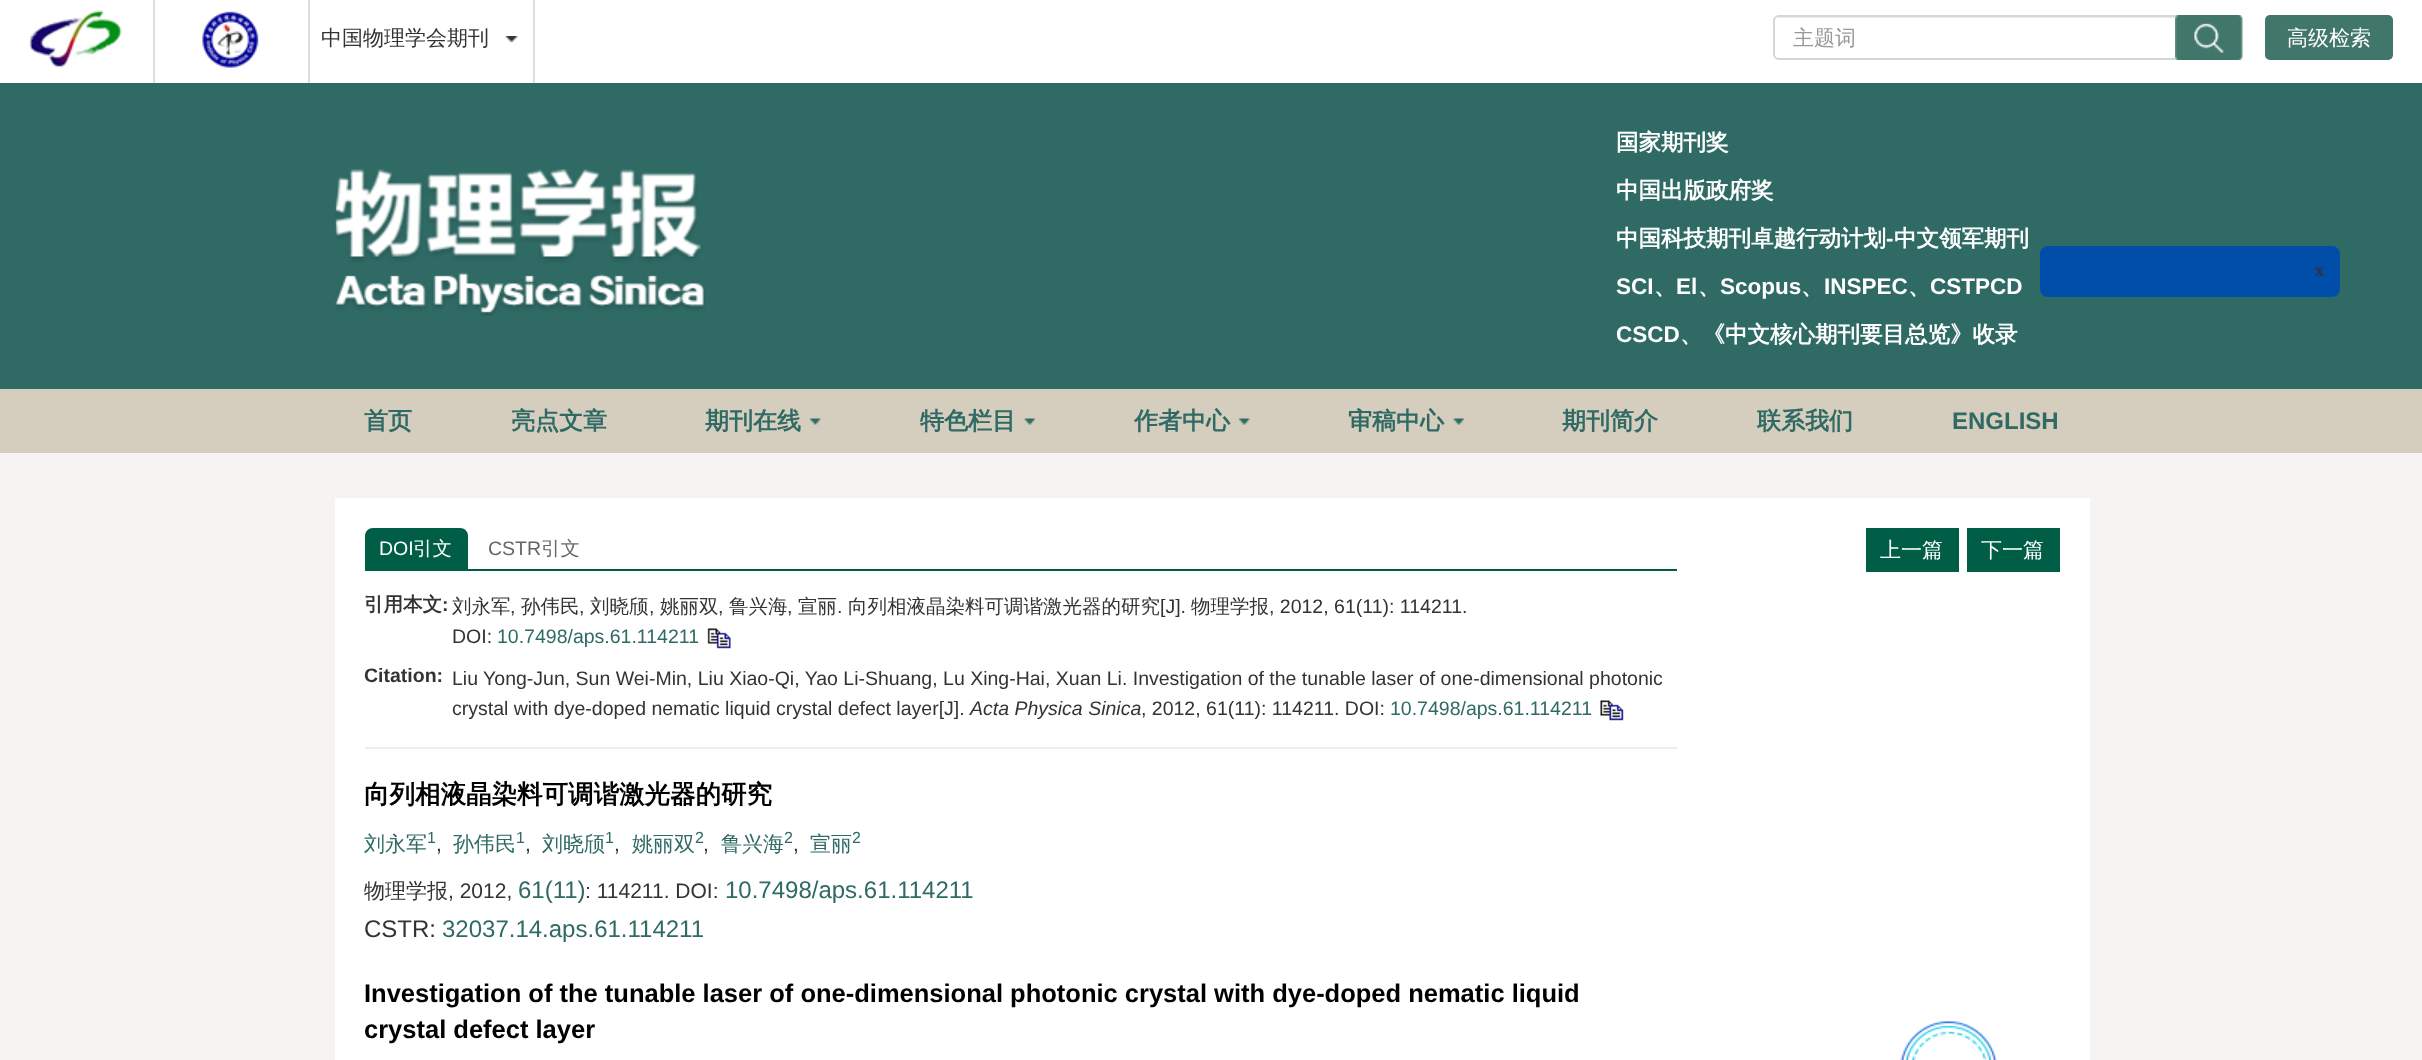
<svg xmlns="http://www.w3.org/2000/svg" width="2422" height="1060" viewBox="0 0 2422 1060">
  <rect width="100%" height="100%" fill="#f6f4f2"/>
  <rect x="0" y="83" width="2422" height="306" fill="#2f6a64"/>
  <rect x="0" y="0" width="2422" height="83" fill="#ffffff"/>
  <rect x="153" y="0" width="2" height="83" fill="#dedede"/>
  <image x="30" y="10" width="92" height="58" href="img1.png"/>
  <rect x="308" y="0" width="2" height="83" fill="#dedede"/>
  <image x="202" y="11" width="57" height="57" href="img2.png"/>
  <rect x="533" y="0" width="2" height="83" fill="#dedede"/>
  <text x="321" y="45" font-family="WenQuanYi Zen Hei" font-size="21" font-weight="500" fill="#333333">中国物理学会期刊</text>
  <image x="505" y="36" width="13" height="7" href="img3.png"/>
  <path d="M1779 18H2176C2179 18 2181 20 2181 22C2181 19 2179 17 2176 17H1780C1778 17 1777 18 1776 19Z" fill="#ececec"/>
  <rect x="1774" y="16" width="408" height="43" rx="5" fill="none" stroke="#d6d6d6" stroke-width="2"/>
  <text x="1793" y="45" font-family="WenQuanYi Zen Hei" font-size="21" font-weight="500" fill="#999999">主题词</text>
  <image x="2175" y="15" width="68" height="45" href="img4.png"/>
  <rect x="2265" y="15" width="128" height="45" rx="5" fill="#41766a"/>
  <text x="2287" y="45" font-family="WenQuanYi Zen Hei" font-size="21" font-weight="500" fill="#ffffff">高级检索</text>
  <image x="335" y="169" width="370" height="147" href="img5.png"/>
  <text x="1616" y="150" font-family="WenQuanYi Zen Hei" font-size="22.5" font-weight="bold" fill="#ffffff">国家期刊奖</text>
  <text x="1616" y="198" font-family="WenQuanYi Zen Hei" font-size="22.5" font-weight="bold" fill="#ffffff">中国出版政府奖</text>
  <text x="1616" y="246" font-family="WenQuanYi Zen Hei" font-size="22.5" font-weight="bold" fill="#ffffff">中国科技期刊卓越行动计划</text>
  <text x="1886" y="246" font-family="Liberation Sans" font-size="22.5" font-weight="bold" fill="#ffffff">-</text>
  <text x="1894" y="246" font-family="WenQuanYi Zen Hei" font-size="22.5" font-weight="bold" fill="#ffffff">中文领军期刊</text>
  <text x="1616" y="294" font-family="Liberation Sans" font-size="22.5" font-weight="bold" fill="#ffffff">SCI</text>
  <text x="1654" y="294" font-family="WenQuanYi Zen Hei" font-size="22.5" font-weight="bold" fill="#ffffff">、</text>
  <text x="1676" y="294" font-family="Liberation Sans" font-size="22.5" font-weight="bold" fill="#ffffff">El</text>
  <text x="1698" y="294" font-family="WenQuanYi Zen Hei" font-size="22.5" font-weight="bold" fill="#ffffff">、</text>
  <text x="1720" y="294" font-family="Liberation Sans" font-size="22.5" font-weight="bold" fill="#ffffff">Scopus</text>
  <text x="1801" y="294" font-family="WenQuanYi Zen Hei" font-size="22.5" font-weight="bold" fill="#ffffff">、</text>
  <text x="1824" y="294" font-family="Liberation Sans" font-size="22.5" font-weight="bold" fill="#ffffff">INSPEC</text>
  <text x="1908" y="294" font-family="WenQuanYi Zen Hei" font-size="22.5" font-weight="bold" fill="#ffffff">、</text>
  <text x="1930" y="294" font-family="Liberation Sans" font-size="22.5" font-weight="bold" fill="#ffffff">CSTPCD</text>
  <text x="1616" y="342" font-family="Liberation Sans" font-size="22.5" font-weight="bold" fill="#ffffff">CSCD</text>
  <text x="1680" y="342" font-family="WenQuanYi Zen Hei" font-size="22.5" font-weight="bold" fill="#ffffff">、《中文核心期刊要目总览》收录</text>
  <rect x="0" y="389" width="2422" height="64" fill="#d5cebe"/>
  <text x="364" y="429" font-family="WenQuanYi Zen Hei" font-size="24" font-weight="bold" fill="#2f6a64">首页</text>
  <text x="511" y="429" font-family="WenQuanYi Zen Hei" font-size="24" font-weight="bold" fill="#2f6a64">亮点文章</text>
  <text x="705" y="429" font-family="WenQuanYi Zen Hei" font-size="24" font-weight="bold" fill="#2f6a64">期刊在线</text>
  <image x="810" y="418" width="11" height="7" href="img6.png"/>
  <text x="920" y="429" font-family="WenQuanYi Zen Hei" font-size="24" font-weight="bold" fill="#2f6a64">特色栏目</text>
  <image x="1024" y="418" width="11" height="7" href="img7.png"/>
  <text x="1134" y="429" font-family="WenQuanYi Zen Hei" font-size="24" font-weight="bold" fill="#2f6a64">作者中心</text>
  <image x="1239" y="418" width="11" height="7" href="img8.png"/>
  <text x="1348" y="429" font-family="WenQuanYi Zen Hei" font-size="24" font-weight="bold" fill="#2f6a64">审稿中心</text>
  <image x="1453" y="418" width="11" height="7" href="img9.png"/>
  <text x="1562" y="429" font-family="WenQuanYi Zen Hei" font-size="24" font-weight="bold" fill="#2f6a64">期刊简介</text>
  <text x="1757" y="429" font-family="WenQuanYi Zen Hei" font-size="24" font-weight="bold" fill="#2f6a64">联系我们</text>
  <text x="1952" y="429" font-family="Liberation Sans" font-size="24" font-weight="bold" fill="#2f6a64">ENGLISH</text>
  <rect x="2041" y="247" width="298" height="49" rx="7" fill="#004ea9" stroke="#004ea9" stroke-width="2"/>
  <text x="2315" y="276" font-family="Liberation Serif" font-size="18" font-weight="bold" fill="#333333">x</text>
  <rect x="335" y="498" width="1755" height="562" fill="#ffffff"/>
  <rect x="365" y="569" width="1312" height="2" fill="#005e46"/>
  <path d="M373 528H460C464.5 528 468 531.5 468 536V569H365V536C365 531.5 368.5 528 373 528Z" fill="#005e46"/>
  <text x="379" y="555" font-family="Liberation Sans" font-size="19.5" fill="#ffffff">DOI</text>
  <text x="413" y="555" font-family="WenQuanYi Zen Hei" font-size="19.5" font-weight="500" fill="#ffffff">引文</text>
  <text x="488" y="555" font-family="Liberation Sans" font-size="19.5" fill="#666666">CSTR</text>
  <text x="541" y="555" font-family="WenQuanYi Zen Hei" font-size="19.5" font-weight="500" fill="#666666">引文</text>
  <rect x="365" y="747" width="1312" height="2" fill="#eeeeee"/>
  <text x="364" y="611" font-family="WenQuanYi Zen Hei" font-size="19.5" font-weight="bold" fill="#333333">引用本文</text>
  <text x="442" y="611" font-family="Liberation Sans" font-size="19.5" font-weight="bold" fill="#333333">:</text>
  <text x="452" y="613" font-family="WenQuanYi Zen Hei" font-size="19.5" font-weight="500" fill="#333333">刘永军</text>
  <text x="510" y="613" font-family="Liberation Sans" font-size="19.5" fill="#333333">,</text>
  <text x="521" y="613" font-family="WenQuanYi Zen Hei" font-size="19.5" font-weight="500" fill="#333333">孙伟民</text>
  <text x="579" y="613" font-family="Liberation Sans" font-size="19.5" fill="#333333">,</text>
  <text x="590" y="613" font-family="WenQuanYi Zen Hei" font-size="19.5" font-weight="500" fill="#333333">刘晓颀</text>
  <text x="649" y="613" font-family="Liberation Sans" font-size="19.5" fill="#333333">,</text>
  <text x="660" y="613" font-family="WenQuanYi Zen Hei" font-size="19.5" font-weight="500" fill="#333333">姚丽双</text>
  <text x="718" y="613" font-family="Liberation Sans" font-size="19.5" fill="#333333">,</text>
  <text x="729" y="613" font-family="WenQuanYi Zen Hei" font-size="19.5" font-weight="500" fill="#333333">鲁兴海</text>
  <text x="787" y="613" font-family="Liberation Sans" font-size="19.5" fill="#333333">,</text>
  <text x="798" y="613" font-family="WenQuanYi Zen Hei" font-size="19.5" font-weight="500" fill="#333333">宣丽</text>
  <text x="837" y="613" font-family="Liberation Sans" font-size="19.5" fill="#333333">.</text>
  <text x="848" y="613" font-family="WenQuanYi Zen Hei" font-size="19.5" font-weight="500" fill="#333333">向列相液晶染料可调谐激光器的研究</text>
  <text x="1160" y="613" font-family="Liberation Sans" font-size="19.5" fill="#333333">[J].</text>
  <text x="1191" y="613" font-family="WenQuanYi Zen Hei" font-size="19.5" font-weight="500" fill="#333333">物理学报</text>
  <text x="1269" y="613" font-family="Liberation Sans" font-size="19.5" fill="#333333">, 2012, 61(11): 114211.</text>
  <text x="452" y="643" font-family="Liberation Sans" font-size="19.5" fill="#333333">DOI:</text>
  <text x="497" y="643" font-family="Liberation Sans" font-size="19.5" fill="#2f6a64">10.7498/aps.61.114211</text>
  <image x="707" y="628" width="24" height="21" href="img10.png"/>
  <text x="364" y="682" font-family="Liberation Sans" font-size="19.5" font-weight="bold" fill="#333333">Citation:</text>
  <text x="452" y="685" font-family="Liberation Sans" font-size="19.5" fill="#333333">Liu Yong-Jun, Sun Wei-Min, Liu Xiao-Qi, Yao Li-Shuang, Lu Xing-Hai, Xuan Li. Investigation of the tunable laser of one-dimensional photonic</text>
  <text x="452" y="715" font-family="Liberation Sans" font-size="19.5" fill="#333333">crystal with dye-doped nematic liquid crystal defect layer[J].</text>
  <text x="970" y="715" font-family="Liberation Sans" font-size="19.5" font-style="italic" fill="#333333">Acta Physica Sinica</text>
  <text x="1141" y="715" font-family="Liberation Sans" font-size="19.5" fill="#333333">, 2012, 61(11): 114211. DOI:</text>
  <text x="1390" y="715" font-family="Liberation Sans" font-size="19.5" fill="#2f6a64">10.7498/aps.61.114211</text>
  <image x="1600" y="700" width="24" height="21" href="img11.png"/>
  <rect x="1866" y="528" width="93" height="44" fill="#005e46"/>
  <text x="1880" y="557" font-family="WenQuanYi Zen Hei" font-size="21" font-weight="500" fill="#ffffff">上一篇</text>
  <rect x="1967" y="528" width="93" height="44" fill="#005e46"/>
  <text x="1981" y="557" font-family="WenQuanYi Zen Hei" font-size="21" font-weight="500" fill="#ffffff">下一篇</text>
  <text x="364" y="803" font-family="WenQuanYi Zen Hei" font-size="25.5" font-weight="bold" fill="#000000">向列相液晶染料可调谐激光器的研究</text>
  <text x="364" y="851" font-family="WenQuanYi Zen Hei" font-size="21" font-weight="500" fill="#2f6a64">刘永军</text>
  <text x="427" y="843" font-family="Liberation Sans" font-size="16" fill="#2f6a64">1</text>
  <text x="436" y="851" font-family="Liberation Sans" font-size="21" fill="#333333">,</text>
  <text x="453" y="851" font-family="WenQuanYi Zen Hei" font-size="21" font-weight="500" fill="#2f6a64">孙伟民</text>
  <text x="516" y="843" font-family="Liberation Sans" font-size="16" fill="#2f6a64">1</text>
  <text x="525" y="851" font-family="Liberation Sans" font-size="21" fill="#333333">,</text>
  <text x="542" y="851" font-family="WenQuanYi Zen Hei" font-size="21" font-weight="500" fill="#2f6a64">刘晓颀</text>
  <text x="605" y="843" font-family="Liberation Sans" font-size="16" fill="#2f6a64">1</text>
  <text x="614" y="851" font-family="Liberation Sans" font-size="21" fill="#333333">,</text>
  <text x="632" y="851" font-family="WenQuanYi Zen Hei" font-size="21" font-weight="500" fill="#2f6a64">姚丽双</text>
  <text x="695" y="843" font-family="Liberation Sans" font-size="16" fill="#2f6a64">2</text>
  <text x="703" y="851" font-family="Liberation Sans" font-size="21" fill="#333333">,</text>
  <text x="721" y="851" font-family="WenQuanYi Zen Hei" font-size="21" font-weight="500" fill="#2f6a64">鲁兴海</text>
  <text x="784" y="843" font-family="Liberation Sans" font-size="16" fill="#2f6a64">2</text>
  <text x="793" y="851" font-family="Liberation Sans" font-size="21" fill="#333333">,</text>
  <text x="810" y="851" font-family="WenQuanYi Zen Hei" font-size="21" font-weight="500" fill="#2f6a64">宣丽</text>
  <text x="852" y="843" font-family="Liberation Sans" font-size="16" fill="#2f6a64">2</text>
  <text x="364" y="898" font-family="WenQuanYi Zen Hei" font-size="21" font-weight="500" fill="#333333">物理学报</text>
  <text x="448" y="898" font-family="Liberation Sans" font-size="21" fill="#333333">, 2012,</text>
  <text x="518" y="898" font-family="Liberation Sans" font-size="24" fill="#2f6a64">61(11)</text>
  <text x="585" y="898" font-family="Liberation Sans" font-size="21" fill="#333333">: 114211. DOI:</text>
  <text x="725" y="898" font-family="Liberation Sans" font-size="24" fill="#2f6a64">10.7498/aps.61.114211</text>
  <text x="364" y="937" font-family="Liberation Sans" font-size="24" fill="#333333">CSTR:</text>
  <text x="442" y="937" font-family="Liberation Sans" font-size="24" fill="#2f6a64">32037.14.aps.61.114211</text>
  <text x="364" y="1002" font-family="Liberation Sans" font-size="25.5" font-weight="bold" fill="#000000">Investigation of the tunable laser of one-dimensional photonic crystal with dye-doped nematic liquid</text>
  <text x="364" y="1038" font-family="Liberation Sans" font-size="25.5" font-weight="bold" fill="#000000">crystal defect layer</text>
  <image x="1900" y="1021" width="97" height="39" href="img12.png"/>
</svg>
